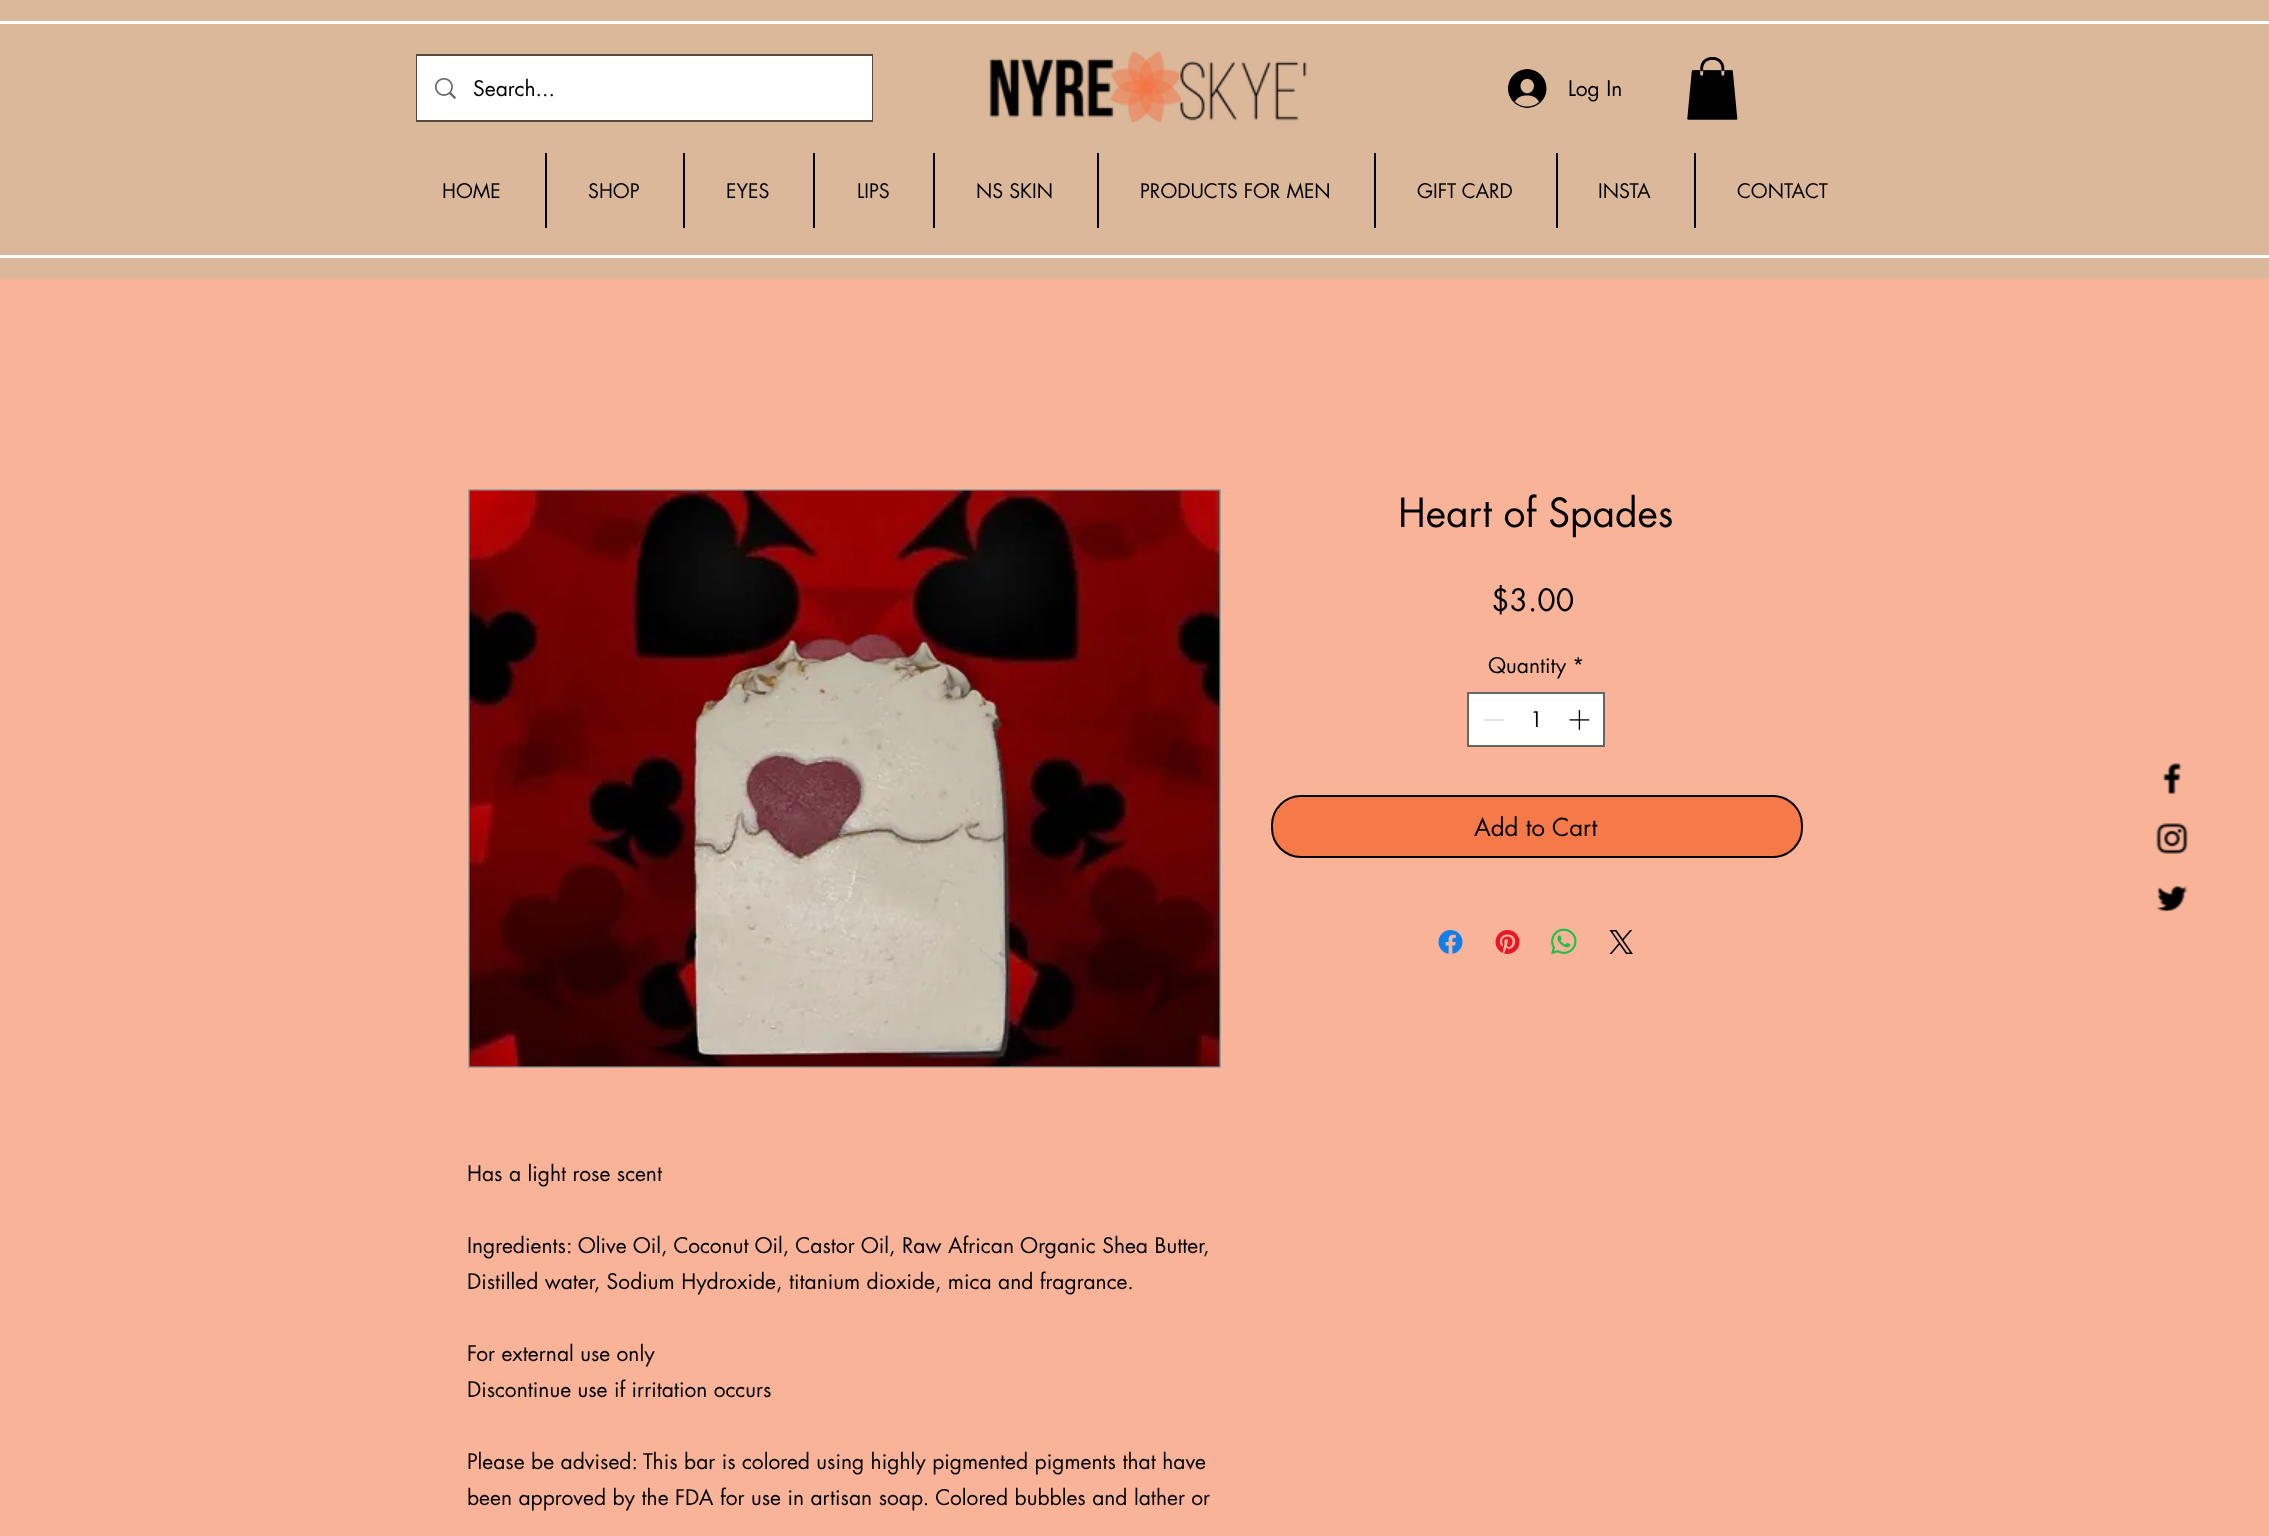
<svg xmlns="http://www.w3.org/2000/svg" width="2269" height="1536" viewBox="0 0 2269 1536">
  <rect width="100%" height="100%" fill="#f8b399"/>
  <rect x="0" y="0" width="2269" height="279" fill="#dbb89a"/>
  <rect x="0" y="21" width="2269" height="3" fill="#ffffff"/>
  <rect x="0" y="255" width="2269" height="3" fill="#ffffff"/>
  <rect x="417" y="55" width="455" height="66" fill="none" stroke="#584a3e" stroke-width="2"/>
  <rect x="417" y="56" width="455" height="64" fill="#ffffff"/>
  <image x="435" y="78" width="21" height="21" href="img1.png"/>
  <text x="473" y="96" font-family="futura" font-size="21" fill="#000000">Search...</text>
  <image x="989" y="51" width="318" height="72" href="img2.png"/>
  <image x="1508" y="69" width="39" height="39" href="img3.png"/>
  <text x="1568" y="96" font-family="futura" font-size="21" fill="#000000">Log In</text>
  <image x="1687" y="57" width="51" height="63" href="img4.png"/>
  <text x="442" y="198" font-family="futura" font-size="19.5" fill="#000000">HOME</text>
  <rect x="545" y="153" width="2" height="75" fill="#000000"/>
  <text x="588" y="198" font-family="futura" font-size="19.5" fill="#000000">SHOP</text>
  <rect x="683" y="153" width="2" height="75" fill="#000000"/>
  <text x="726" y="198" font-family="futura" font-size="19.5" fill="#000000">EYES</text>
  <rect x="813" y="153" width="2" height="75" fill="#000000"/>
  <text x="857" y="198" font-family="futura" font-size="19.5" fill="#000000">LIPS</text>
  <rect x="933" y="153" width="2" height="75" fill="#000000"/>
  <text x="976" y="198" font-family="futura" font-size="19.5" fill="#000000">NS SKIN</text>
  <rect x="1097" y="153" width="2" height="75" fill="#000000"/>
  <text x="1140" y="198" font-family="futura" font-size="19.5" fill="#000000">PRODUCTS FOR MEN</text>
  <rect x="1374" y="153" width="2" height="75" fill="#000000"/>
  <text x="1417" y="198" font-family="futura" font-size="19.5" fill="#000000">GIFT CARD</text>
  <rect x="1556" y="153" width="2" height="75" fill="#000000"/>
  <text x="1598" y="198" font-family="futura" font-size="19.5" fill="#000000">INSTA</text>
  <rect x="1694" y="153" width="2" height="75" fill="#000000"/>
  <text x="1737" y="198" font-family="futura" font-size="19.5" fill="#000000">CONTACT</text>
  <text x="1398" y="527" font-family="futura" font-size="39" fill="#000000">Heart of Spades</text>
  <text x="1491" y="611" font-family="futura" font-size="30" fill="#000000">$3.00</text>
  <text x="1488" y="673" font-family="futura" font-size="21" fill="#000000">Quantity</text>
  <text x="1572" y="673" font-family="futura" font-size="21" fill="#000000">*</text>
  <rect x="1468" y="693" width="136" height="53" fill="#ffffff" stroke="#666666" stroke-width="2"/>
  <rect x="1484" y="719" width="20" height="2" fill="#e3e3e3"/>
  <text x="1530" y="727" font-family="futura" font-size="21" fill="#000000">1</text>
  <image x="1569" y="710" width="21" height="20" href="img5.png"/>
  <rect x="1272" y="796" width="530" height="61" rx="29" fill="#f67949" stroke="#000000" stroke-width="2"/>
  <text x="1474" y="836" font-family="futura" font-size="24" fill="#000000">Add to Cart</text>
  <image x="1438" y="930" width="25" height="24" href="img6.png"/>
  <image x="1495" y="930" width="25" height="24" href="img7.png"/>
  <image x="1551" y="928" width="26" height="27" href="img8.png"/>
  <image x="1609" y="930" width="24" height="24" href="img9.png"/>
  <rect x="469" y="490" width="751" height="577" fill="none" stroke="#a0a09f" stroke-width="2"/>
  <image x="469" y="490" width="751" height="577" href="img10.png"/>
  <text x="467" y="1181" font-family="futura" font-size="21" fill="#000000">Has a light rose scent</text>
  <text x="467" y="1253" font-family="futura" font-size="21" fill="#000000">Ingredients: Olive Oil, Coconut Oil, Castor Oil, Raw African Organic Shea Butter,</text>
  <text x="467" y="1289" font-family="futura" font-size="21" fill="#000000">Distilled water, Sodium Hydroxide, titanium dioxide, mica and fragrance.</text>
  <text x="467" y="1361" font-family="futura" font-size="21" fill="#000000">For external use only</text>
  <text x="467" y="1397" font-family="futura" font-size="21" fill="#000000">Discontinue use if irritation occurs</text>
  <text x="467" y="1469" font-family="futura" font-size="21" fill="#000000">Please be advised: This bar is colored using highly pigmented pigments that have</text>
  <text x="467" y="1505" font-family="futura" font-size="21" fill="#000000">been approved by the FDA for use in artisan soap. Colored bubbles and lather or</text>
  <image x="2162" y="763" width="20" height="31" href="img11.png"/>
  <image x="2156" y="823" width="32" height="31" href="img12.png"/>
  <image x="2156" y="886" width="32" height="26" href="img13.png"/>
</svg>
